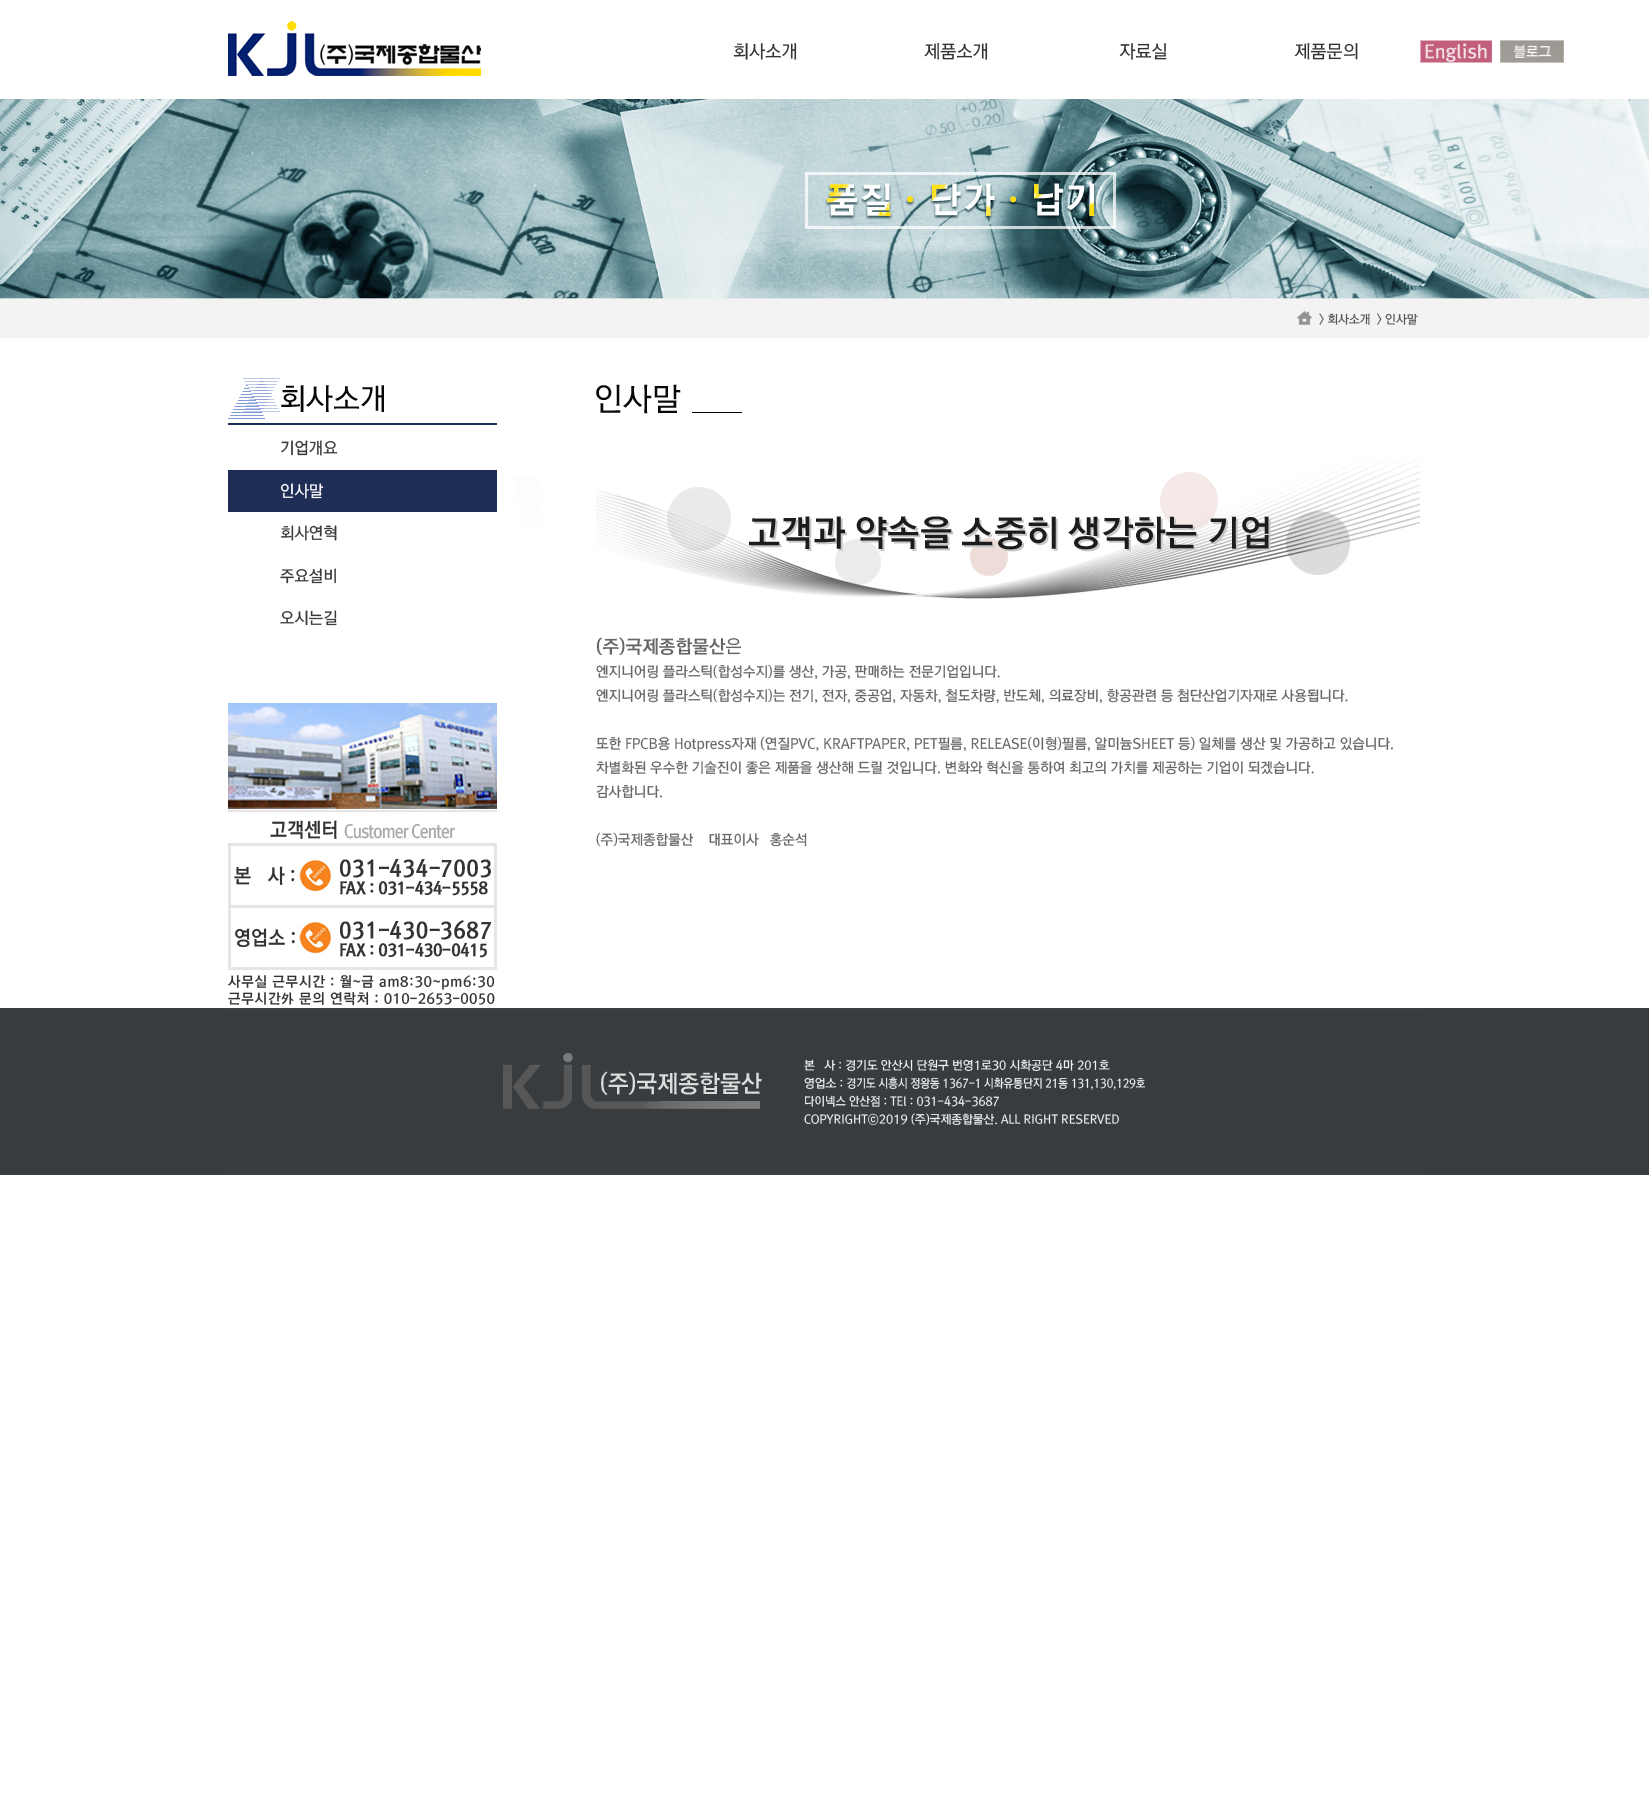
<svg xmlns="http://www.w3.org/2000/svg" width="1649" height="1797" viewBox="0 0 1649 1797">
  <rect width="100%" height="100%" fill="#ffffff"/>
  <image x="228" y="21" width="258" height="58" href="img1.png"/>
  <image x="733" y="43" width="64" height="17" href="img2.png"/>
  <image x="924" y="43" width="64" height="17" href="img3.png"/>
  <image x="1119" y="43" width="48" height="17" href="img4.png"/>
  <image x="1294" y="43" width="64" height="17" href="img5.png"/>
  <image x="1420" y="40" width="72" height="23" href="img6.png"/>
  <image x="1500" y="40" width="64" height="23" href="img7.png"/>
  <image x="0" y="99" width="1649" height="200" href="img8.png"/>
  <rect x="0" y="299" width="1649" height="39" fill="#f3f3f3"/>
  <image x="223" y="299" width="1195" height="26" href="img9.png"/>
  <image x="228" y="378" width="274" height="47" href="img10.png"/>
  <image x="281" y="440" width="57" height="16" href="img11.png"/>
  <image x="228" y="470" width="269" height="42" href="img12.png"/>
  <image x="281" y="525" width="56" height="16" href="img13.png"/>
  <image x="280" y="568" width="56" height="16" href="img14.png"/>
  <image x="280" y="610" width="57" height="16" href="img15.png"/>
  <image x="223" y="701" width="279" height="305" href="img16.png"/>
  <image x="596" y="384" width="146" height="30" href="img17.png"/>
  <image x="516" y="458" width="904" height="389" href="img18.png"/>
  <rect x="0" y="1008" width="1649" height="167" fill="#383c3f"/>
  <image x="223" y="1008" width="1203" height="167" href="img19.png"/>
</svg>
